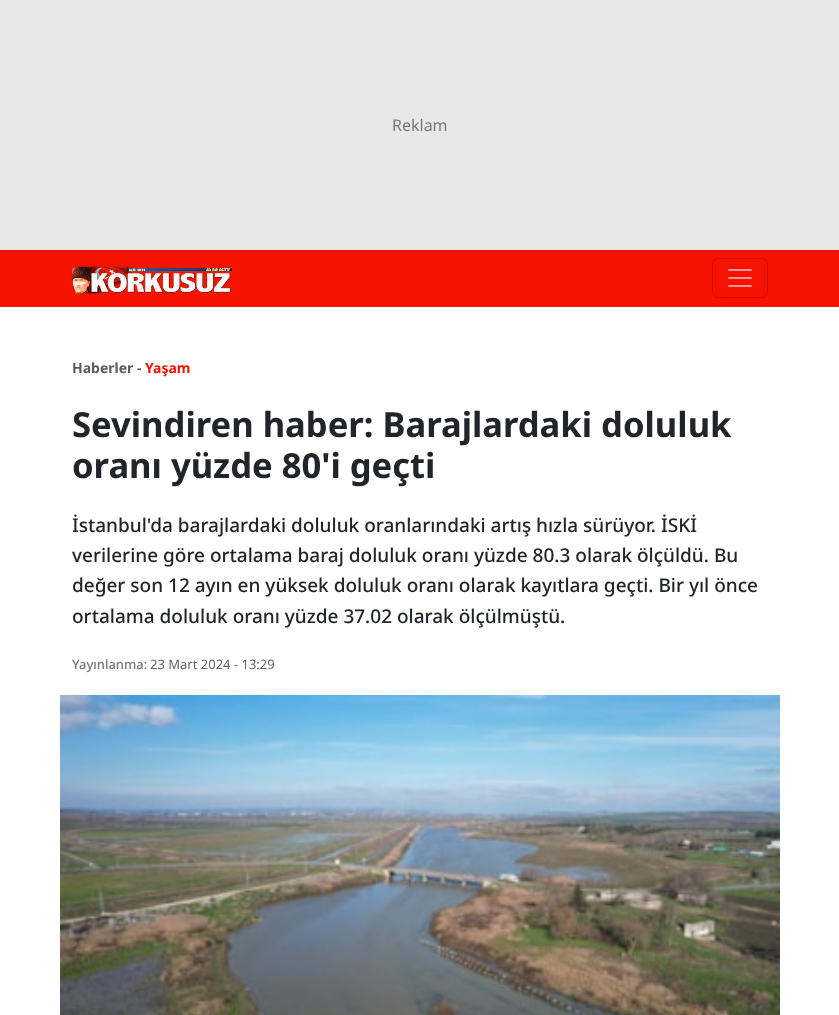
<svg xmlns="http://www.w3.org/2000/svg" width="839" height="1015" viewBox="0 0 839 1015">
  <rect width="100%" height="100%" fill="#ffffff"/>
  <rect x="0" y="0" width="839" height="250" fill="#e8e8e8"/>
  <text x="392" y="131" font-family="Noto Sans" font-size="16" fill="#777777">Reklam</text>
  <rect x="0" y="250" width="839" height="57" fill="#f51200"/>
  <image x="71" y="266" width="161" height="28" href="img1.png"/>
  <rect x="712.5" y="258.5" width="55" height="39" rx="5.5" fill="none" stroke="#d00f00"/>
  <image x="728" y="269" width="24" height="18" href="img2.png"/>
  <text x="72" y="373" font-family="Noto Sans" font-size="14" font-weight="bold" fill="#595c5f">Haberler -</text>
  <text x="145" y="373" font-family="Noto Sans" font-size="14" font-weight="bold" fill="#f51200">Yaşam</text>
  <text x="72" y="437" font-family="Noto Sans" font-size="34.6" font-weight="bold" fill="#212529">Sevindiren haber: Barajlardaki doluluk</text>
  <text x="72" y="478" font-family="Noto Sans" font-size="34.6" font-weight="bold" fill="#212529">oranı yüzde 80'i geçti</text>
  <text x="72" y="532" font-family="Noto Sans" font-size="19" font-weight="500" fill="#212529">İstanbul'da barajlardaki doluluk oranlarındaki artış hızla sürüyor. İSKİ</text>
  <text x="72" y="562" font-family="Noto Sans" font-size="19" font-weight="500" fill="#212529">verilerine göre ortalama baraj doluluk oranı yüzde 80.3 olarak ölçüldü. Bu</text>
  <text x="72" y="592" font-family="Noto Sans" font-size="19" font-weight="500" fill="#212529">değer son 12 ayın en yüksek doluluk oranı olarak kayıtlara geçti. Bir yıl önce</text>
  <text x="72" y="623" font-family="Noto Sans" font-size="19" font-weight="500" fill="#212529">ortalama doluluk oranı yüzde 37.02 olarak ölçülmüştü.</text>
  <text x="72" y="669" font-family="Noto Sans" font-size="13" font-weight="500" fill="#777777">Yayınlanma:</text>
  <text x="150" y="669" font-family="Noto Sans" font-size="13" fill="#666666">23 Mart 2024 - 13:29</text>
  <image x="60" y="695" width="720" height="320" href="img3.png"/>
</svg>
